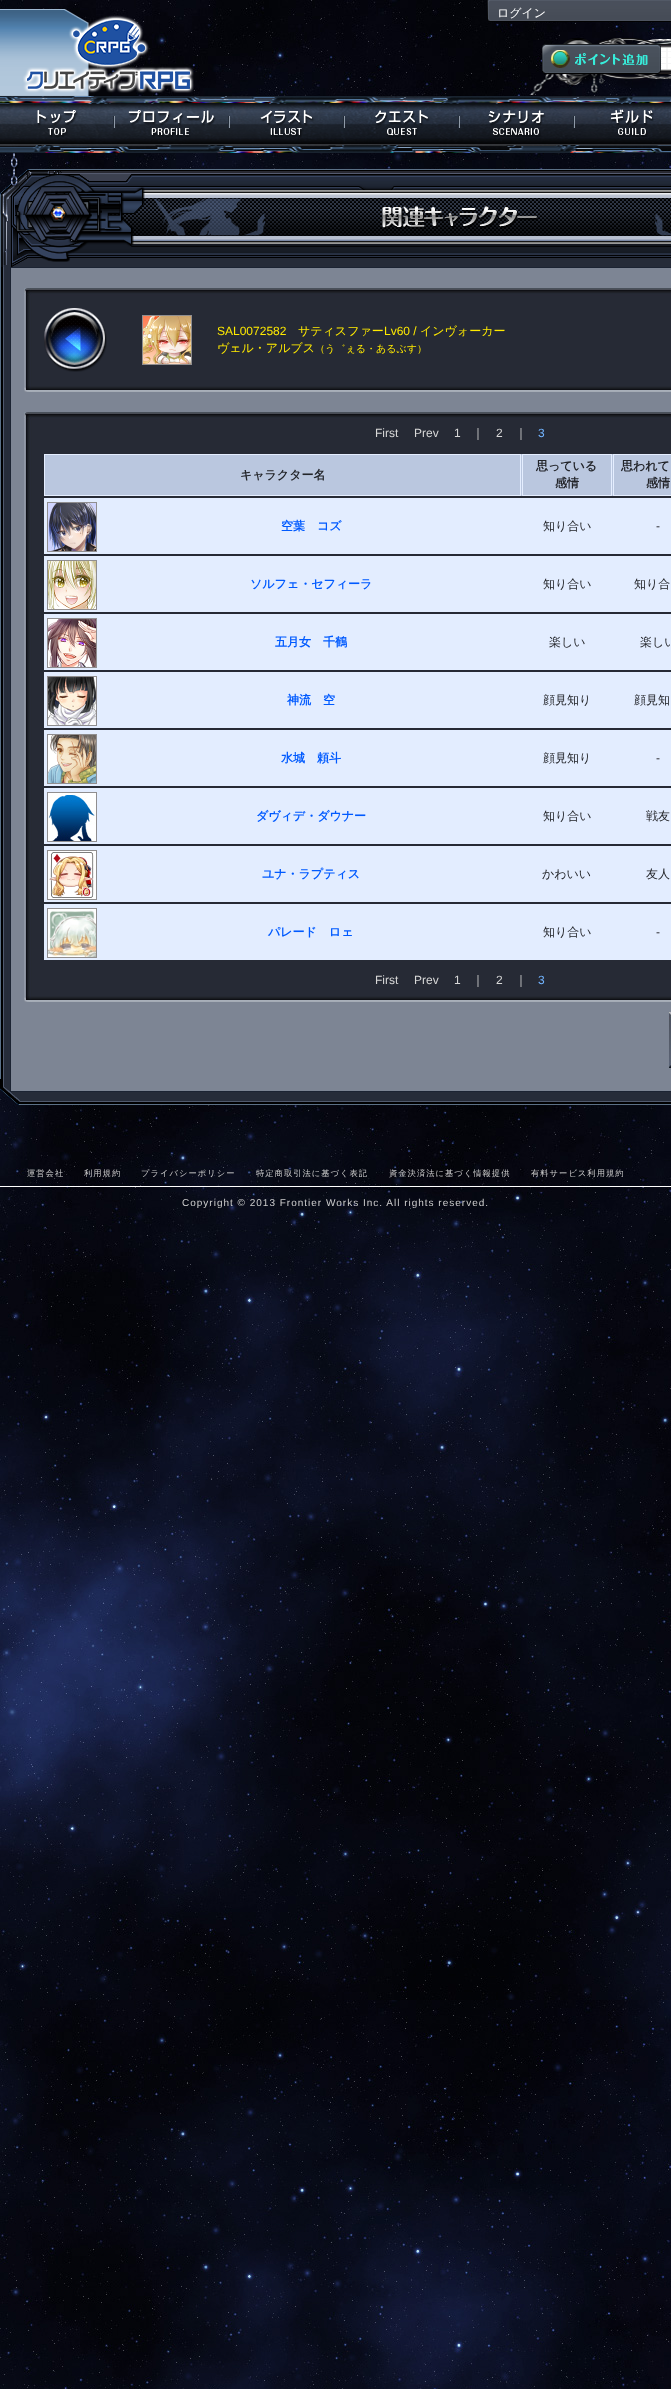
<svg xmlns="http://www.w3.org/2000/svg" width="671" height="2389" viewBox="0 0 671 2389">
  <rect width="100%" height="100%" fill="#ffffff"/>
  <image x="0" y="0" width="671" height="2389" href="img1.png"/>
  <image x="0" y="9" width="671" height="144" href="img2.png"/>
  <image x="487" y="0" width="184" height="22" href="img3.png"/>
  <text x="497" y="17" font-family="WenQuanYi Zen Hei" font-size="12" font-weight="500" fill="#ffffff">ログイン</text>
  <image x="542" y="44" width="119" height="30" href="img4.png"/>
  <image x="23" y="15" width="171" height="78" href="img5.png"/>
  <image x="37" y="110" width="78" height="28" href="img6.png"/>
  <image x="128" y="110" width="102" height="28" href="img7.png"/>
  <image x="260" y="110" width="85" height="28" href="img8.png"/>
  <image x="375" y="110" width="85" height="28" href="img9.png"/>
  <image x="488" y="110" width="87" height="27" href="img10.png"/>
  <image x="610" y="109" width="44" height="28" href="img11.png"/>
  <image x="0" y="153" width="671" height="114" href="img12.png"/>
  <image x="10" y="174" width="661" height="93" href="img13.png"/>
  <image x="0" y="1079" width="671" height="26" href="img14.png"/>
  <image x="0" y="267" width="10" height="812" href="img15.png"/>
  <rect x="11" y="268" width="660" height="811" fill="#7d8594"/>
  <rect x="10" y="267" width="661" height="1" fill="#1c2433"/>
  <rect x="10" y="267" width="1" height="812" fill="#1c2433"/>
  <image x="24" y="296" width="647" height="90" href="img16.png"/>
  <image x="24" y="288" width="647" height="8" href="img17.png"/>
  <image x="24" y="386" width="647" height="6" href="img18.png"/>
  <image x="44" y="308" width="63" height="64" href="img19.png"/>
  <rect x="142.5" y="315.5" width="49" height="49" fill="none" stroke="#908e8f"/>
  <image x="143" y="316" width="48" height="48" href="img20.png"/>
  <text x="217" y="335" font-family="Liberation Sans" font-size="12" fill="#ffea00">SAL0072582</text>
  <text x="298" y="335" font-family="WenQuanYi Zen Hei" font-size="12" font-weight="500" fill="#ffea00">サティスファー</text>
  <text x="384" y="335" font-family="Liberation Sans" font-size="12" fill="#ffea00">Lv60 /</text>
  <text x="420" y="335" font-family="WenQuanYi Zen Hei" font-size="12" font-weight="500" fill="#ffea00">インヴォーカー</text>
  <text x="217" y="352" font-family="WenQuanYi Zen Hei" font-size="12" font-weight="500" fill="#ffea00">ヴェル・アルブス</text>
  <text x="315" y="352" font-family="WenQuanYi Zen Hei" font-size="10" font-weight="500" fill="#ffea00">（う゛ぇる・あるぶす）</text>
  <image x="24" y="420" width="647" height="576" href="img21.png"/>
  <image x="24" y="412" width="647" height="8" href="img17.png"/>
  <image x="24" y="996" width="647" height="6" href="img18.png"/>
  <text x="375" y="437" font-family="Liberation Sans" font-size="12" fill="#d8d8d8">First</text>
  <text x="414" y="437" font-family="Liberation Sans" font-size="12" fill="#d8d8d8">Prev</text>
  <text x="454" y="437" font-family="Liberation Sans" font-size="12" fill="#d8d8d8">1</text>
  <text x="472" y="437" font-family="WenQuanYi Zen Hei" font-size="12" font-weight="500" fill="#d8d8d8">｜</text>
  <text x="496" y="437" font-family="Liberation Sans" font-size="12" fill="#d8d8d8">2</text>
  <text x="515" y="437" font-family="WenQuanYi Zen Hei" font-size="12" font-weight="500" fill="#d8d8d8">｜</text>
  <text x="538" y="437" font-family="Liberation Sans" font-size="12" fill="#72b4ff">3</text>
  <rect x="45" y="454" width="626" height="42" fill="#bac7df"/>
  <rect x="44.5" y="454.5" width="476" height="41" fill="none" stroke="#e5eeff"/>
  <text x="240" y="479" font-family="WenQuanYi Zen Hei" font-size="12" font-weight="bold" fill="#23252a">キャラクター名</text>
  <rect x="522.5" y="454.5" width="89" height="41" fill="none" stroke="#e5eeff"/>
  <text x="536" y="470" font-family="WenQuanYi Zen Hei" font-size="12" font-weight="bold" fill="#23252a">思っている</text>
  <text x="555" y="487" font-family="WenQuanYi Zen Hei" font-size="12" font-weight="bold" fill="#23252a">感情</text>
  <rect x="613.5" y="454.5" width="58" height="41" fill="none" stroke="#e5eeff"/>
  <text x="621" y="470" font-family="WenQuanYi Zen Hei" font-size="12" font-weight="bold" fill="#23252a">思われて</text>
  <text x="646" y="487" font-family="WenQuanYi Zen Hei" font-size="12" font-weight="bold" fill="#23252a">感情</text>
  <rect x="44" y="498" width="627" height="56" fill="#e3edff"/>
  <rect x="47.5" y="502.5" width="49" height="49" fill="none" stroke="#908e8f"/>
  <image x="48" y="503" width="48" height="48" href="img22.png"/>
  <text x="281" y="530" font-family="WenQuanYi Zen Hei" font-size="12" font-weight="bold" fill="#005aff">空葉　コズ</text>
  <text x="543" y="530" font-family="WenQuanYi Zen Hei" font-size="12" font-weight="500" fill="#23252a">知り合い</text>
  <text x="656" y="530" font-family="Liberation Sans" font-size="12" fill="#23252a">-</text>
  <rect x="44" y="556" width="627" height="56" fill="#e3edff"/>
  <rect x="47.5" y="560.5" width="49" height="49" fill="none" stroke="#908e8f"/>
  <image x="48" y="561" width="48" height="48" href="img23.png"/>
  <text x="250" y="588" font-family="WenQuanYi Zen Hei" font-size="12" font-weight="bold" fill="#005aff">ソルフェ・セフィーラ</text>
  <text x="543" y="588" font-family="WenQuanYi Zen Hei" font-size="12" font-weight="500" fill="#23252a">知り合い</text>
  <text x="634" y="588" font-family="WenQuanYi Zen Hei" font-size="12" font-weight="500" fill="#23252a">知り合</text>
  <rect x="44" y="614" width="627" height="56" fill="#e3edff"/>
  <rect x="47.5" y="618.5" width="49" height="49" fill="none" stroke="#908e8f"/>
  <image x="48" y="619" width="48" height="48" href="img24.png"/>
  <text x="275" y="646" font-family="WenQuanYi Zen Hei" font-size="12" font-weight="bold" fill="#005aff">五月女　千鶴</text>
  <text x="549" y="646" font-family="WenQuanYi Zen Hei" font-size="12" font-weight="500" fill="#23252a">楽しい</text>
  <text x="640" y="646" font-family="WenQuanYi Zen Hei" font-size="12" font-weight="500" fill="#23252a">楽しい</text>
  <rect x="44" y="672" width="627" height="56" fill="#e3edff"/>
  <rect x="47.5" y="676.5" width="49" height="49" fill="none" stroke="#908e8f"/>
  <image x="48" y="677" width="48" height="48" href="img25.png"/>
  <text x="287" y="704" font-family="WenQuanYi Zen Hei" font-size="12" font-weight="bold" fill="#005aff">神流　空</text>
  <text x="543" y="704" font-family="WenQuanYi Zen Hei" font-size="12" font-weight="500" fill="#23252a">顔見知り</text>
  <text x="634" y="704" font-family="WenQuanYi Zen Hei" font-size="12" font-weight="500" fill="#23252a">顔見知</text>
  <rect x="44" y="730" width="627" height="56" fill="#e3edff"/>
  <rect x="47.5" y="734.5" width="49" height="49" fill="none" stroke="#908e8f"/>
  <image x="48" y="735" width="48" height="48" href="img26.png"/>
  <text x="281" y="762" font-family="WenQuanYi Zen Hei" font-size="12" font-weight="bold" fill="#005aff">水城　頼斗</text>
  <text x="543" y="762" font-family="WenQuanYi Zen Hei" font-size="12" font-weight="500" fill="#23252a">顔見知り</text>
  <text x="656" y="762" font-family="Liberation Sans" font-size="12" fill="#23252a">-</text>
  <rect x="44" y="788" width="627" height="56" fill="#e3edff"/>
  <rect x="47.5" y="792.5" width="49" height="49" fill="none" stroke="#908e8f"/>
  <image x="48" y="793" width="48" height="48" href="img27.png"/>
  <text x="256" y="820" font-family="WenQuanYi Zen Hei" font-size="12" font-weight="bold" fill="#005aff">ダヴィデ・ダウナー</text>
  <text x="543" y="820" font-family="WenQuanYi Zen Hei" font-size="12" font-weight="500" fill="#23252a">知り合い</text>
  <text x="646" y="820" font-family="WenQuanYi Zen Hei" font-size="12" font-weight="500" fill="#23252a">戦友</text>
  <rect x="44" y="846" width="627" height="56" fill="#e3edff"/>
  <rect x="47.5" y="850.5" width="49" height="49" fill="none" stroke="#908e8f"/>
  <image x="48" y="851" width="48" height="48" href="img28.png"/>
  <text x="262" y="878" font-family="WenQuanYi Zen Hei" font-size="12" font-weight="bold" fill="#005aff">ユナ・ラプティス</text>
  <text x="542" y="878" font-family="WenQuanYi Zen Hei" font-size="12" font-weight="500" fill="#23252a">かわいい</text>
  <text x="646" y="878" font-family="WenQuanYi Zen Hei" font-size="12" font-weight="500" fill="#23252a">友人</text>
  <rect x="44" y="904" width="627" height="56" fill="#e3edff"/>
  <rect x="47.5" y="908.5" width="49" height="49" fill="none" stroke="#908e8f"/>
  <image x="48" y="909" width="48" height="48" href="img29.png"/>
  <text x="268" y="936" font-family="WenQuanYi Zen Hei" font-size="12" font-weight="bold" fill="#005aff">パレード　ロェ</text>
  <text x="543" y="936" font-family="WenQuanYi Zen Hei" font-size="12" font-weight="500" fill="#23252a">知り合い</text>
  <text x="656" y="936" font-family="Liberation Sans" font-size="12" fill="#23252a">-</text>
  <text x="375" y="984" font-family="Liberation Sans" font-size="12" fill="#d8d8d8">First</text>
  <text x="414" y="984" font-family="Liberation Sans" font-size="12" fill="#d8d8d8">Prev</text>
  <text x="454" y="984" font-family="Liberation Sans" font-size="12" fill="#d8d8d8">1</text>
  <text x="472" y="984" font-family="WenQuanYi Zen Hei" font-size="12" font-weight="500" fill="#d8d8d8">｜</text>
  <text x="496" y="984" font-family="Liberation Sans" font-size="12" fill="#d8d8d8">2</text>
  <text x="515" y="984" font-family="WenQuanYi Zen Hei" font-size="12" font-weight="500" fill="#d8d8d8">｜</text>
  <text x="538" y="984" font-family="Liberation Sans" font-size="12" fill="#72b4ff">3</text>
  <image x="669" y="1012" width="2" height="56" href="img30.png"/>
  <text x="27" y="1176" font-family="WenQuanYi Zen Hei" font-size="8.3" font-weight="500" letter-spacing="1" fill="#cecece">運営会社</text>
  <text x="84" y="1176" font-family="WenQuanYi Zen Hei" font-size="8.3" font-weight="500" letter-spacing="1" fill="#cecece">利用規約</text>
  <text x="141" y="1176" font-family="WenQuanYi Zen Hei" font-size="8.3" font-weight="500" letter-spacing="1" fill="#cecece">プライバシーポリシー</text>
  <text x="256" y="1176" font-family="WenQuanYi Zen Hei" font-size="8.3" font-weight="500" letter-spacing="1" fill="#cecece">特定商取引法に基づく表記</text>
  <text x="389" y="1176" font-family="WenQuanYi Zen Hei" font-size="8.3" font-weight="500" letter-spacing="1" fill="#cecece">資金決済法に基づく情報提供</text>
  <text x="531" y="1176" font-family="WenQuanYi Zen Hei" font-size="8.3" font-weight="500" letter-spacing="1" fill="#cecece">有料サービス利用規約</text>
  <rect x="0" y="1186" width="671" height="1" fill="#ffffff"/>
  <text x="182" y="1206" font-family="Liberation Sans" font-size="10" letter-spacing="1" fill="#cecece">Copyright © 2013 Frontier Works Inc. All rights reserved.</text>
</svg>
